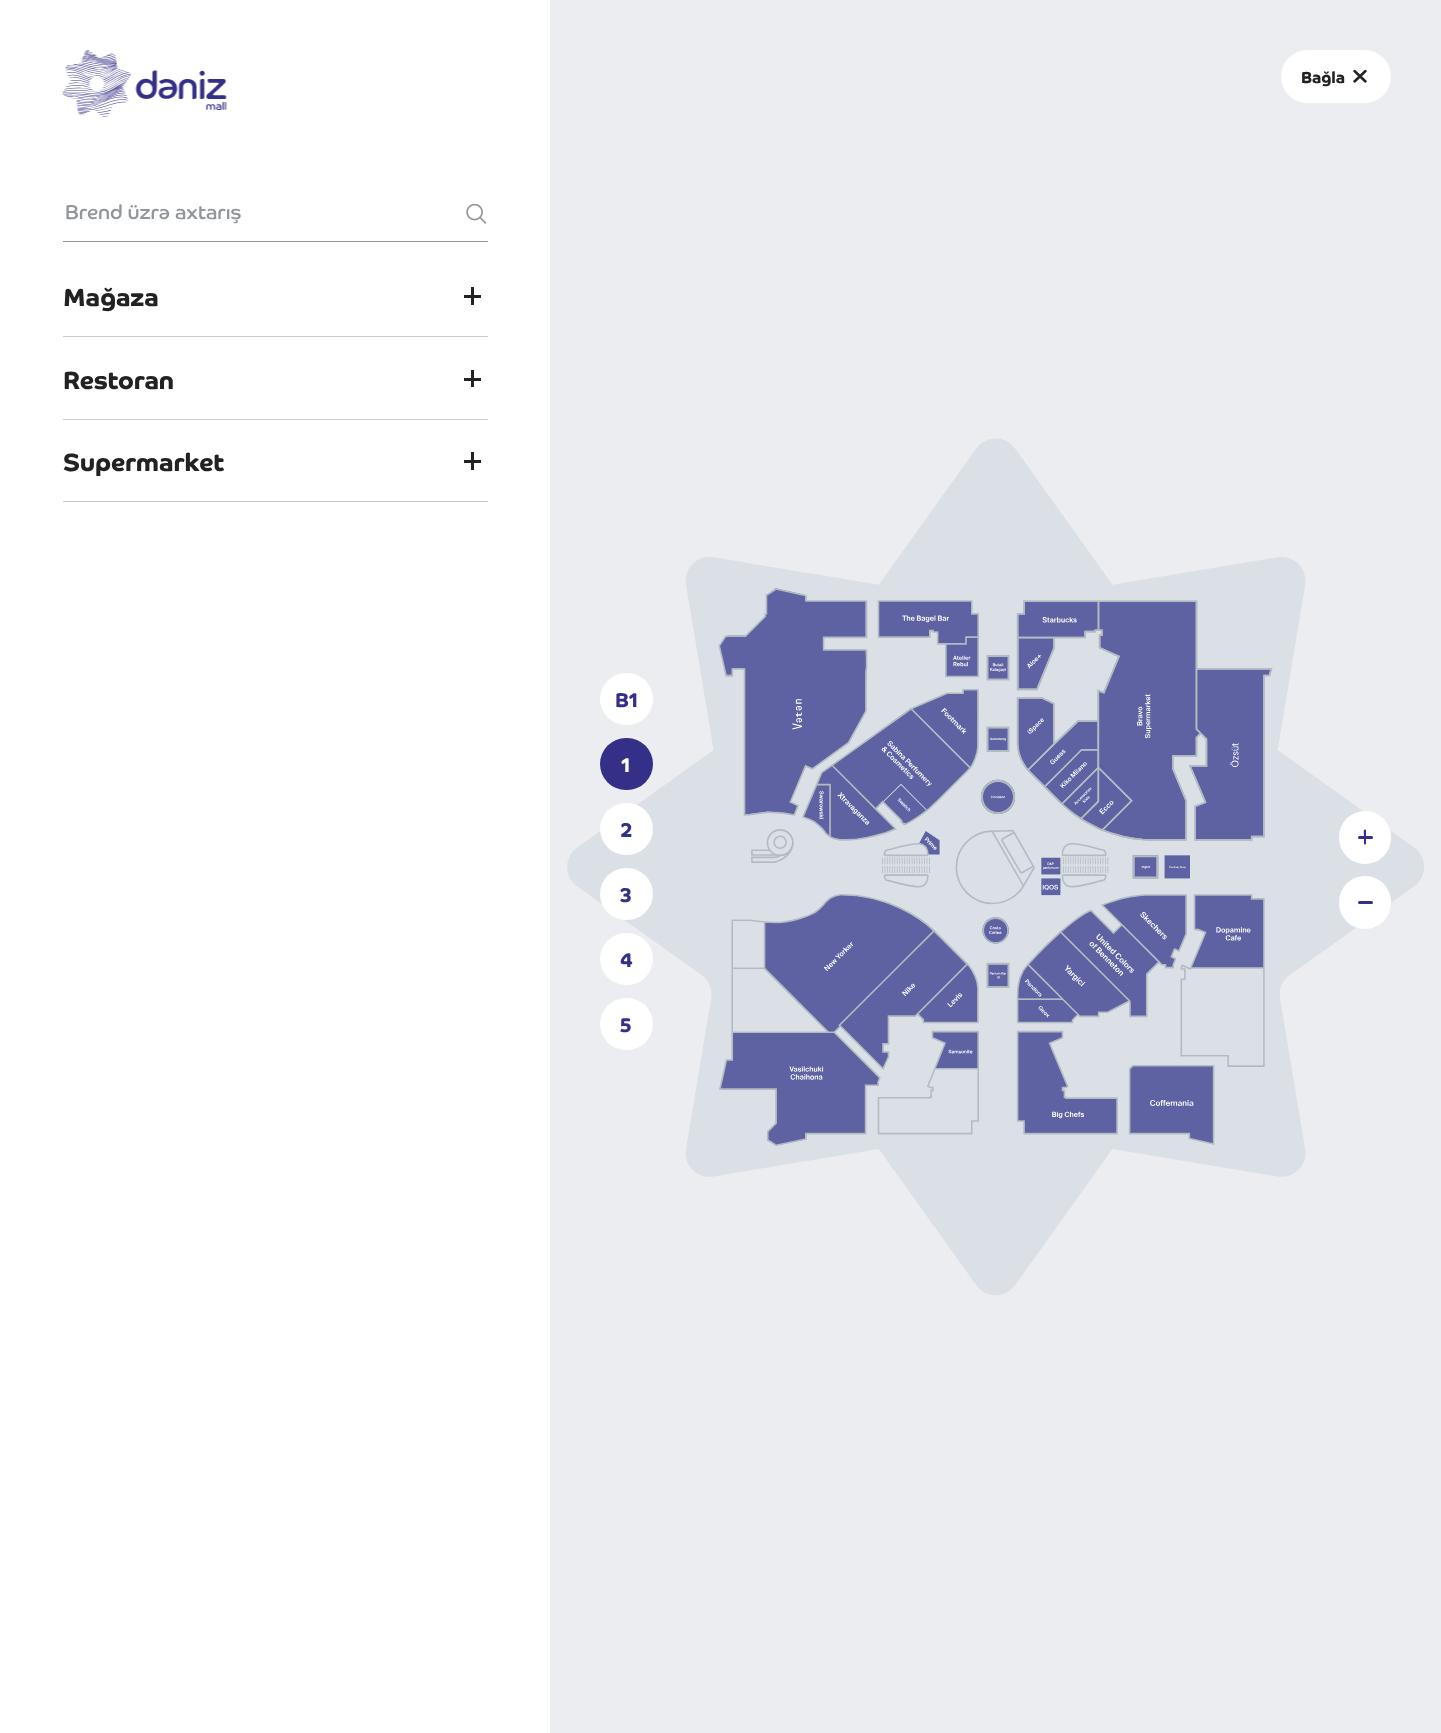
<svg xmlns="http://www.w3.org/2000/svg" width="1441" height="1733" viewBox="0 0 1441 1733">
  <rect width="100%" height="100%" fill="#ebedf0"/>
  <rect x="0" y="0" width="550" height="1733" fill="#ffffff"/>
  <image x="62" y="50" width="165" height="68" href="img1.png"/>
  <rect x="63" y="241" width="425" height="1" fill="#91969b"/>
  <text x="65" y="219" font-family="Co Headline" font-size="20" fill="#91969b">Brend üzrə axtarış</text>
  <image x="466" y="204" width="21" height="20" href="img2.png"/>
  <rect x="63" y="336" width="425" height="1" fill="#cdcdcd"/>
  <text x="63" y="306" font-family="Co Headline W" font-size="25" font-weight="bold" fill="#222222">Mağaza</text>
  <rect x="464" y="295" width="17" height="3" fill="#222222"/>
  <rect x="471" y="287" width="3" height="18" fill="#222222"/>
  <rect x="63" y="419" width="425" height="1" fill="#cdcdcd"/>
  <text x="63" y="389" font-family="Co Headline W" font-size="25" font-weight="bold" fill="#222222">Restoran</text>
  <rect x="464" y="378" width="17" height="3" fill="#222222"/>
  <rect x="471" y="370" width="3" height="17" fill="#222222"/>
  <rect x="63" y="501" width="425" height="1" fill="#cdcdcd"/>
  <text x="63" y="471" font-family="Co Headline W" font-size="25" font-weight="bold" fill="#222222">Supermarket</text>
  <rect x="464" y="460" width="17" height="3" fill="#222222"/>
  <rect x="471" y="452" width="3" height="18" fill="#222222"/>
  <rect x="1281" y="50" width="110" height="53" rx="26.5" fill="#ffffff"/>
  <path d="M1354.5 71L1365.5 81.5M1365.5 71L1354.5 81.5" fill="none" stroke="#222222" stroke-width="2.5" stroke-linecap="round"/>
  <text x="1301" y="83" font-family="Co Headline W" font-size="16" font-weight="bold" fill="#222222">Bağla</text>
  <image x="567" y="438" width="857" height="858" href="img3.png"/>
  <rect x="600" y="673" width="53" height="52" rx="26" fill="#ffffff"/>
  <text x="615" y="707" font-family="Co Headline W" font-size="20" font-weight="bold" fill="#343087">B1</text>
  <rect x="600" y="738" width="53" height="52" rx="26" fill="#343087"/>
  <text x="621" y="772" font-family="Co Headline W" font-size="20" font-weight="bold" fill="#ffffff">1</text>
  <rect x="600" y="803" width="53" height="52" rx="26" fill="#ffffff"/>
  <text x="621" y="837" font-family="Co Headline W" font-size="20" font-weight="bold" fill="#343087">2</text>
  <rect x="600" y="868" width="53" height="52" rx="26" fill="#ffffff"/>
  <text x="620" y="902" font-family="Co Headline W" font-size="20" font-weight="bold" fill="#343087">3</text>
  <rect x="600" y="933" width="53" height="52" rx="26" fill="#ffffff"/>
  <text x="620" y="967" font-family="Co Headline W" font-size="20" font-weight="bold" fill="#343087">4</text>
  <rect x="600" y="998" width="53" height="52" rx="26" fill="#ffffff"/>
  <text x="620" y="1032" font-family="Co Headline W" font-size="20" font-weight="bold" fill="#343087">5</text>
  <rect x="1339" y="811" width="52" height="53" rx="26" fill="#ffffff"/>
  <rect x="1358" y="836" width="15" height="3" rx="1.5" fill="#343087"/>
  <path d="M1366 830.5V843.5L1365.5 844.5C1363.5 845 1364 842 1364 841V835C1364 834 1363 829.5 1365 829.5C1365.5 829.5 1366 830 1366 830.5Z" fill="#343087"/>
  <rect x="1339" y="876" width="52" height="53" rx="26" fill="#ffffff"/>
  <rect x="1358" y="901" width="15" height="3" rx="1.5" fill="#343087"/>
</svg>
